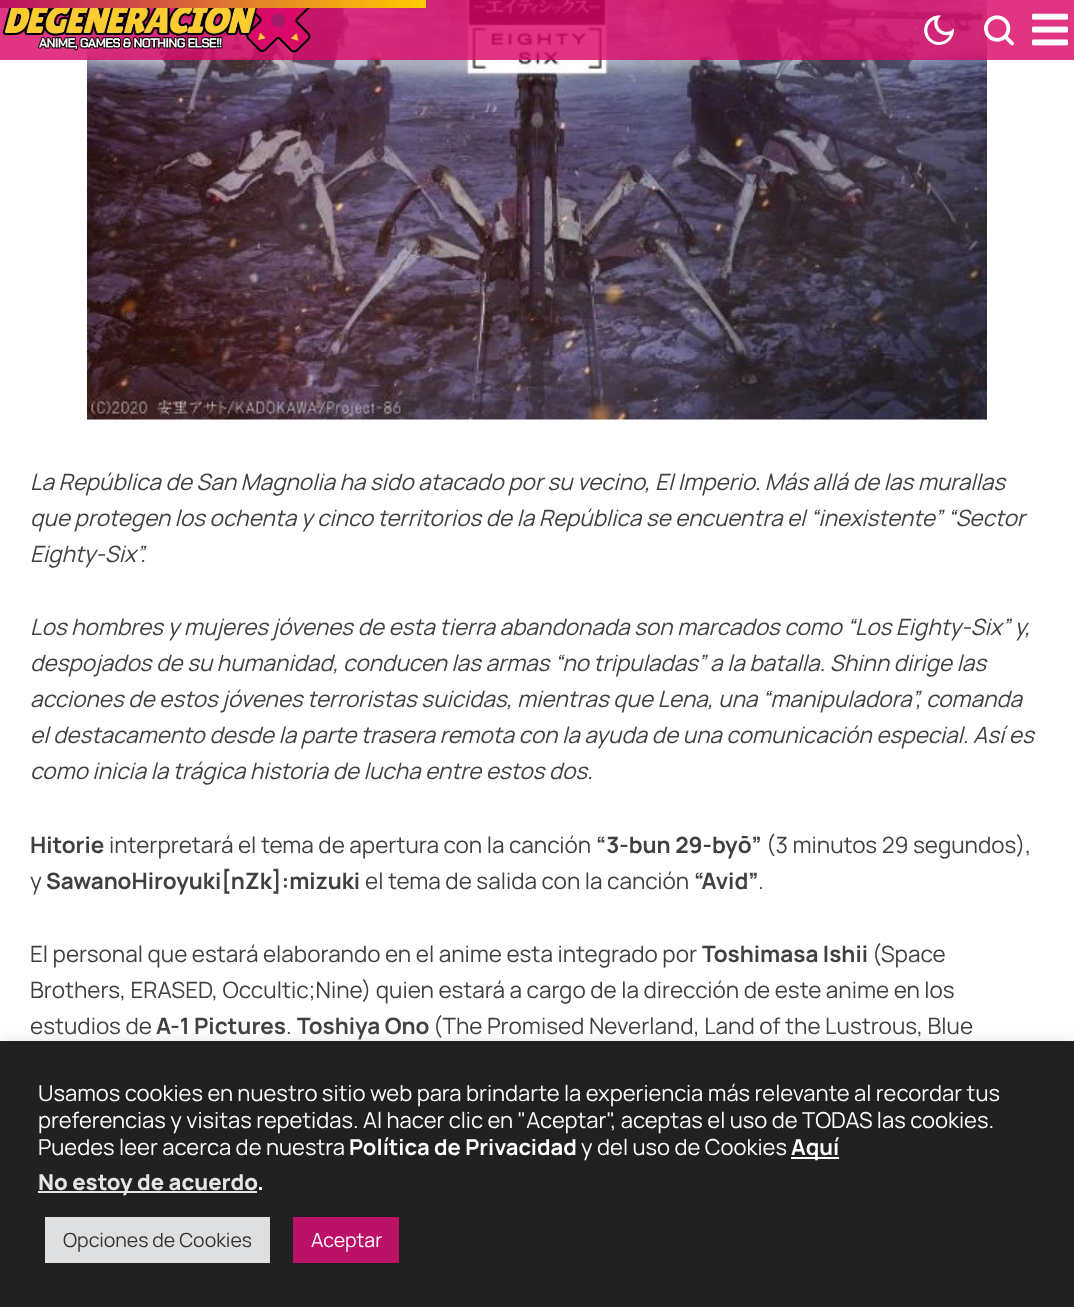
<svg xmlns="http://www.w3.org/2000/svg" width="1074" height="1307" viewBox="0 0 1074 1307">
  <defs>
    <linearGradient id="g1" gradientUnits="userSpaceOnUse" x1="0" y1="3.8" x2="426" y2="3.7"><stop offset="0" stop-color="#bb1166"/><stop offset="1" stop-color="#ffcc00"/></linearGradient>
    <filter id="blur1" x="-50%" y="-200%" width="200%" height="500%"><feGaussianBlur stdDeviation="7.5"/></filter>
  </defs>
  <rect width="100%" height="100%" fill="#ffffff"/>
  <image x="87" y="0" width="900" height="420" href="img5.png"/>
  <rect x="0" y="0" width="1074" height="60" fill="#da0968" fill-opacity="0.82"/>
  <image x="2" y="8" width="309" height="45" href="img1.png"/>
  <image x="924" y="15" width="30" height="30" href="img2.png"/>
  <image x="984" y="15" width="30" height="31" href="img3.png"/>
  <image x="1032" y="13" width="36" height="33" href="img4.png"/>
  <rect x="0" y="0" width="426" height="8" fill="url(#g1)"/>
  <text x="30" y="490" font-family="Manrope" font-size="22.5" font-style="italic" fill="#404040">La República de San Magnolia ha sido atacado por su vecino, El Imperio. Más allá de las murallas</text>
  <text x="30" y="526" font-family="Manrope" font-size="22.5" font-style="italic" fill="#404040">que protegen los ochenta y cinco territorios de la República se encuentra el “inexistente” “Sector</text>
  <text x="30" y="562" font-family="Manrope" font-size="22.5" font-style="italic" fill="#404040">Eighty-Six”.</text>
  <text x="30" y="635" font-family="Manrope" font-size="22.5" font-style="italic" fill="#404040">Los hombres y mujeres jóvenes de esta tierra abandonada son marcados como “Los Eighty-Six” y,</text>
  <text x="30" y="671" font-family="Manrope" font-size="22.5" font-style="italic" fill="#404040">despojados de su humanidad, conducen las armas “no tripuladas” a la batalla. Shinn dirige las</text>
  <text x="30" y="707" font-family="Manrope" font-size="22.5" font-style="italic" fill="#404040">acciones de estos jóvenes terroristas suicidas, mientras que Lena, una “manipuladora”, comanda</text>
  <text x="30" y="743" font-family="Manrope" font-size="22.5" font-style="italic" fill="#404040">el destacamento desde la parte trasera remota con la ayuda de una comunicación especial. Así es</text>
  <text x="30" y="779" font-family="Manrope" font-size="22.5" font-style="italic" fill="#404040">como inicia la trágica historia de lucha entre estos dos.</text>
  <text x="30" y="853" font-family="Manrope" font-size="22.5" font-weight="bold" fill="#404040">Hitorie</text>
  <text x="109" y="853" font-family="Manrope" font-size="22.5" fill="#404040">interpretará el tema de apertura con la canción</text>
  <text x="596" y="853" font-family="Manrope" font-size="22.5" font-weight="bold" fill="#404040">“3-bun 29-byō”</text>
  <text x="766" y="853" font-family="Manrope" font-size="22.5" fill="#404040">(3 minutos 29 segundos),</text>
  <text x="30" y="889" font-family="Manrope" font-size="22.5" fill="#404040">y</text>
  <text x="46" y="889" font-family="Manrope" font-size="22.5" font-weight="bold" fill="#404040">SawanoHiroyuki[nZk]:mizuki</text>
  <text x="365" y="889" font-family="Manrope" font-size="22.5" fill="#404040">el tema de salida con la canción</text>
  <text x="694" y="889" font-family="Manrope" font-size="22.5" font-weight="bold" fill="#404040">“Avid”</text>
  <text x="758" y="889" font-family="Manrope" font-size="22.5" fill="#404040">.</text>
  <text x="30" y="962" font-family="Manrope" font-size="22.5" fill="#404040">El personal que estará elaborando en el anime esta integrado por</text>
  <text x="702" y="962" font-family="Manrope" font-size="22.5" font-weight="bold" fill="#404040">Toshimasa Ishii</text>
  <text x="872" y="962" font-family="Manrope" font-size="22.5" fill="#404040">(Space</text>
  <text x="30" y="998" font-family="Manrope" font-size="22.5" fill="#404040">Brothers, ERASED, Occultic;Nine) quien estará a cargo de la dirección de este anime en los</text>
  <text x="30" y="1034" font-family="Manrope" font-size="22.5" fill="#404040">estudios de</text>
  <text x="156" y="1034" font-family="Manrope" font-size="22.5" font-weight="bold" fill="#404040">A-1 Pictures</text>
  <text x="286" y="1034" font-family="Manrope" font-size="22.5" fill="#404040">.</text>
  <text x="297" y="1034" font-family="Manrope" font-size="22.5" font-weight="bold" fill="#404040">Toshiya Ono</text>
  <text x="433" y="1034" font-family="Manrope" font-size="22.5" fill="#404040">(The Promised Neverland, Land of the Lustrous, Blue</text>
  <rect x="0" y="1040" width="1074" height="267" fill="#acabab" fill-opacity="0.3" filter="url(#blur1)"/>
  <rect x="0" y="1041" width="1074" height="266" fill="#212121"/>
  <text x="38" y="1101" font-family="Manrope" font-size="22" fill="#ffffff">Usamos cookies en nuestro sitio web para brindarte la experiencia más relevante al recordar tus</text>
  <text x="38" y="1128" font-family="Manrope" font-size="22" fill="#ffffff">preferencias y visitas repetidas. Al hacer clic en "Aceptar", aceptas el uso de TODAS las cookies.</text>
  <rect x="791" y="1157" width="48" height="2" fill="#ffffff"/>
  <text x="791" y="1155" font-family="Manrope" font-size="22" font-weight="bold" fill="#ffffff">Aquí</text>
  <rect x="38" y="1191" width="219" height="2" fill="#e5e5e5"/>
  <text x="38" y="1190" font-family="Manrope" font-size="22" font-weight="800" fill="#e5e5e5">No estoy de acuerdo</text>
  <text x="257" y="1190" font-family="Manrope" font-size="22" font-weight="800" fill="#ffffff">.</text>
  <text x="38" y="1155" font-family="Manrope" font-size="22" fill="#ffffff">Puedes leer acerca de nuestra</text>
  <text x="349" y="1155" font-family="Manrope" font-size="22" font-weight="bold" fill="#ffffff">Política de Privacidad</text>
  <text x="581" y="1155" font-family="Manrope" font-size="22" fill="#ffffff">y del uso de Cookies</text>
  <rect x="45" y="1217" width="225" height="46" fill="#dedfe0"/>
  <text x="63" y="1247" font-family="Manrope" font-size="19.5" fill="#333333">Opciones de Cookies</text>
  <rect x="293" y="1217" width="106" height="46" fill="#bb1166"/>
  <text x="311" y="1247" font-family="Manrope" font-size="19.5" fill="#ffffff">Aceptar</text>
</svg>
